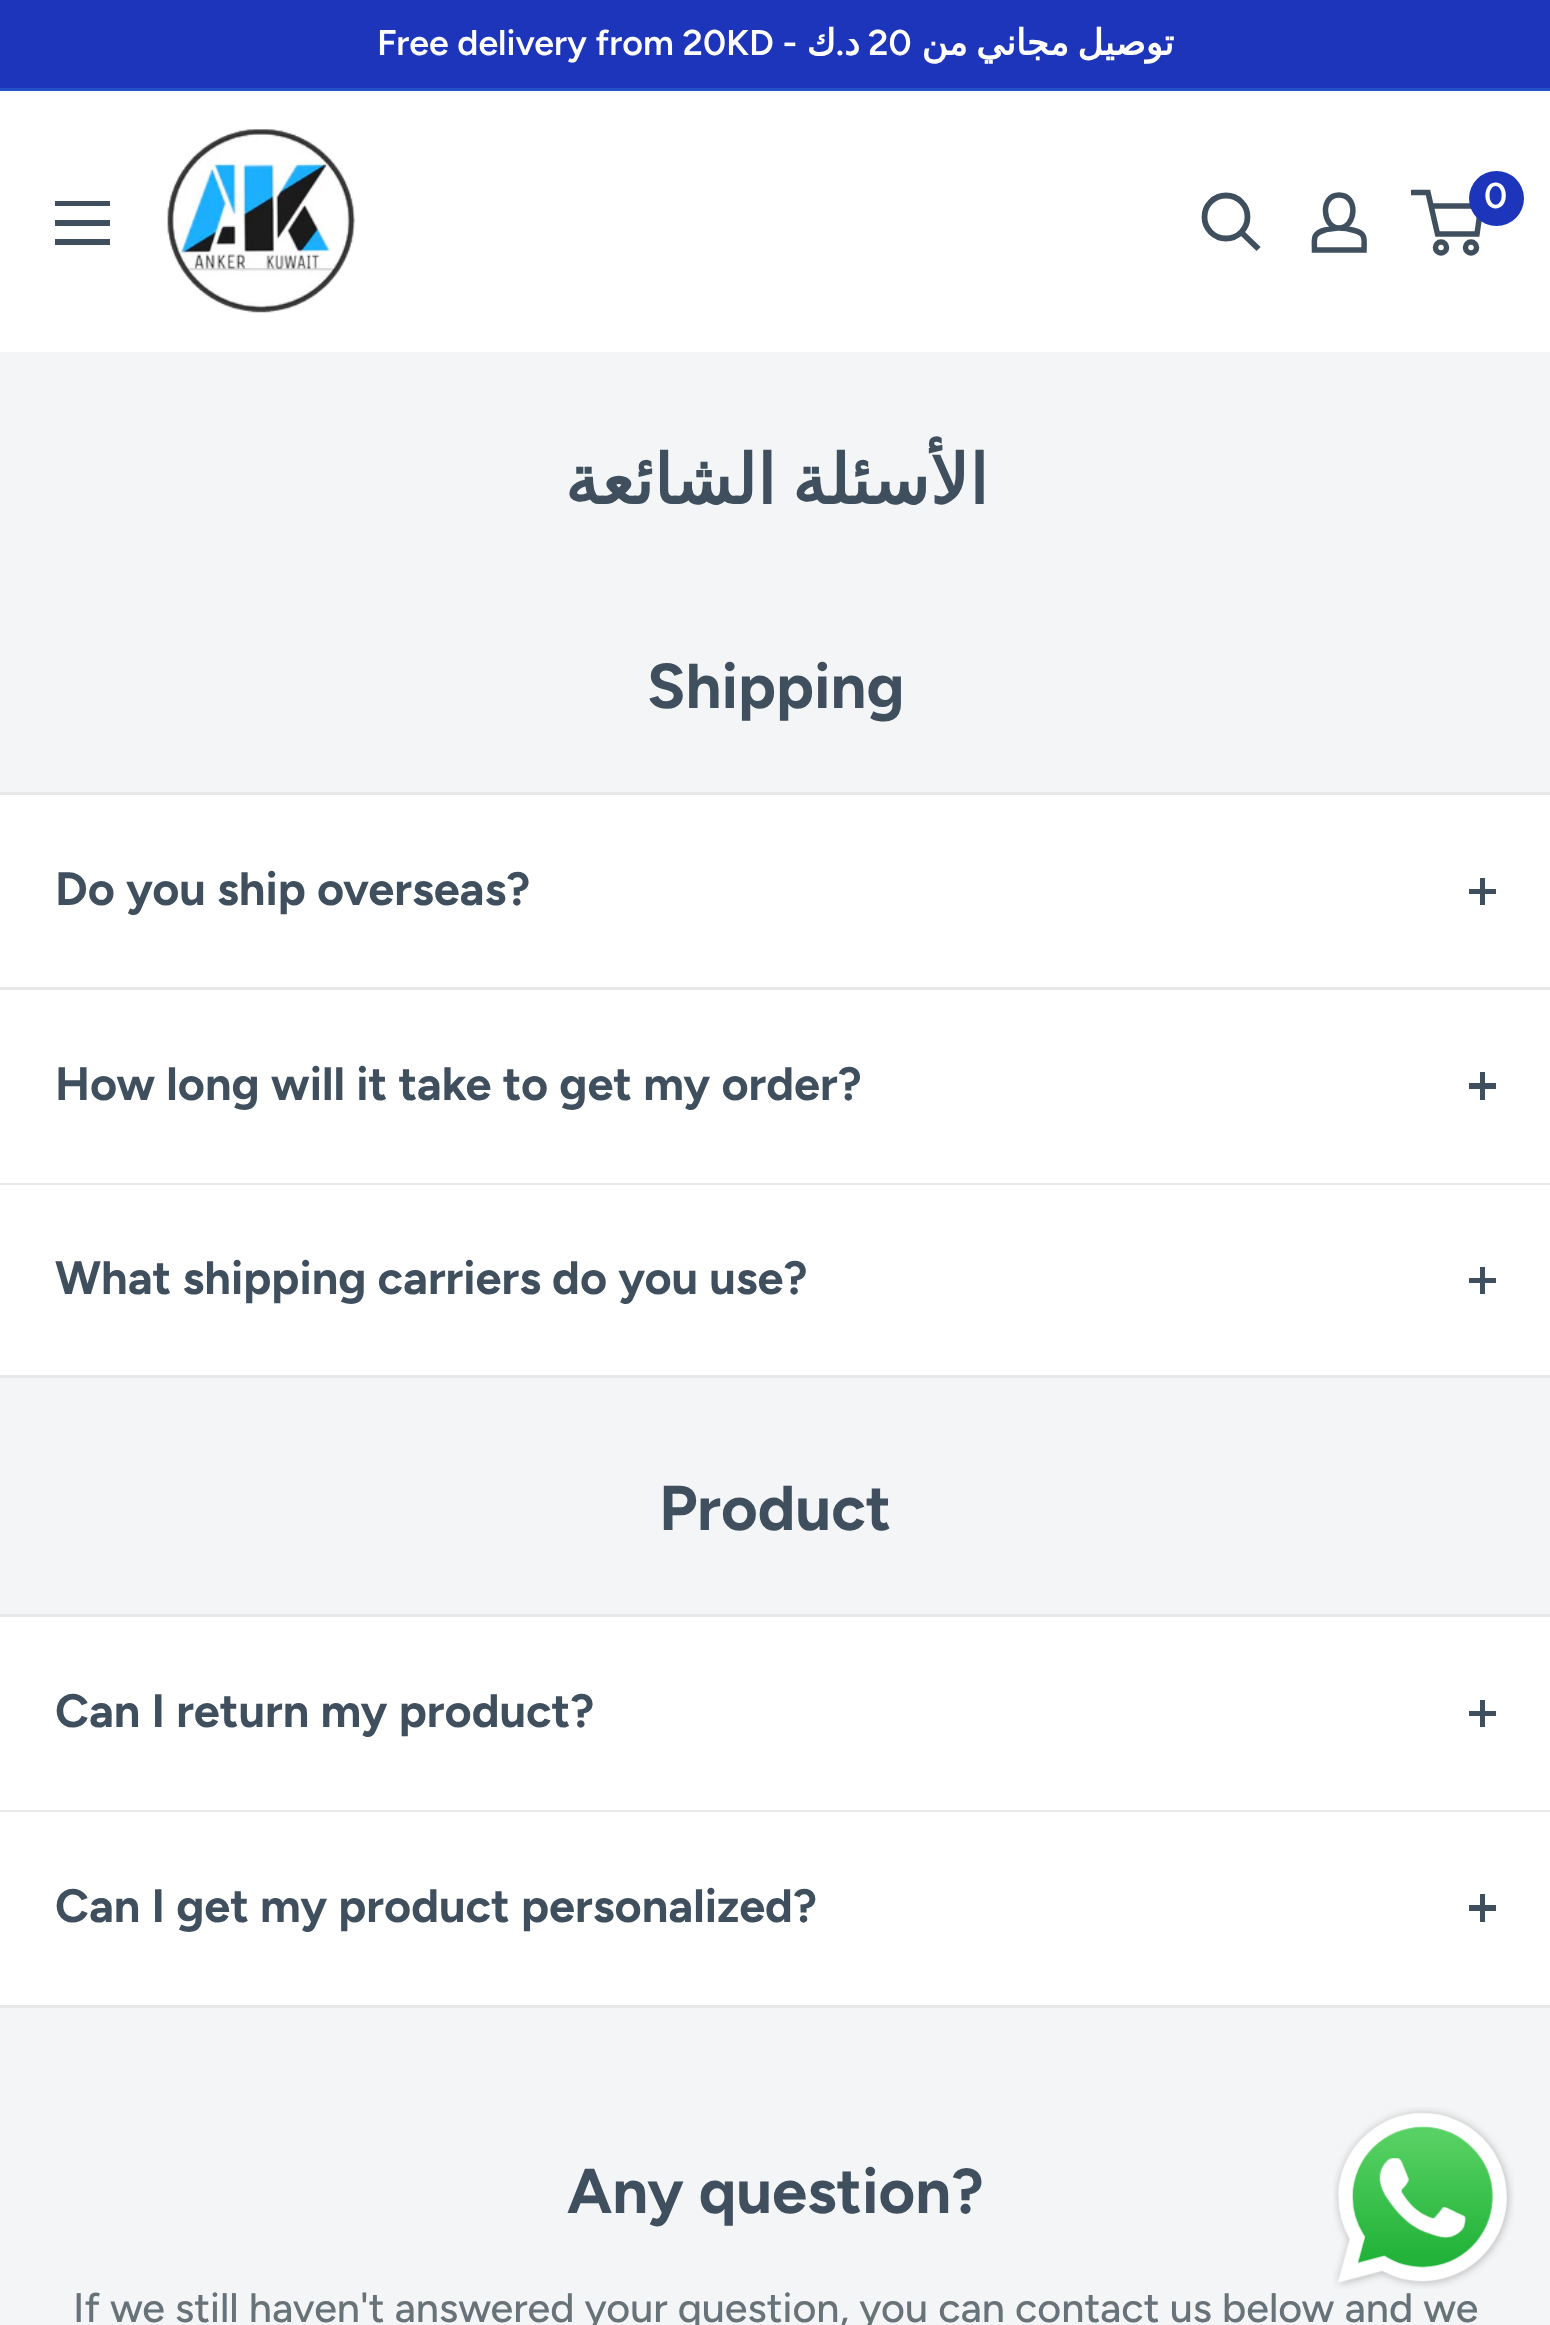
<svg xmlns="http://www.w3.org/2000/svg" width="1550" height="2325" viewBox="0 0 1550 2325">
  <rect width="100%" height="100%" fill="#f3f5f6"/>
  <rect x="0" y="0" width="1550" height="88" fill="#1d35ba"/>
  <rect x="0" y="88" width="1550" height="3" fill="#274fc6"/>
  <text x="377" y="55" font-family="Figtree" font-size="35.75" font-weight="600" fill="#ffffff">Free delivery from 20KD -</text>
  <text x="836" y="55" font-family="DejaVu Sans" font-size="35.75" font-weight="bold" direction="rtl" fill="#ffffff">ك</text>
  <text x="844" y="55" font-family="Figtree" font-size="35.75" font-weight="600" direction="rtl" fill="#ffffff">.</text>
  <text x="860" y="55" font-family="DejaVu Sans" font-size="35.75" font-weight="bold" direction="rtl" fill="#ffffff">د</text>
  <text x="868" y="55" font-family="Figtree" font-size="35.75" font-weight="600" fill="#ffffff">20</text>
  <text x="1174" y="55" word-spacing="-3" font-family="DejaVu Sans" font-size="35.75" font-weight="bold" direction="rtl" fill="#ffffff">توصيل مجاني من</text>
  <rect x="0" y="91" width="1550" height="261" fill="#ffffff"/>
  <image x="167" y="129" width="188" height="184" href="img1.png"/>
  <path d="M1256.5 247L1242 233" fill="none" stroke="#3f4f5e" stroke-width="5.8" stroke-linecap="square"/>
  <circle cx="1226" cy="217" r="21.5" fill="none" stroke="#3f4f5e" stroke-width="5.8"/>
  <path d="M1339 228C1344.5 228 1349.5 229 1354.5 230.5C1366.5 233.5 1364 240 1364 250H1314.5C1314.5 239 1312 233.5 1325 230C1329.5 229 1334.5 228.5 1339 228ZM1339 228C1322.5 228 1319.5 195 1339 195C1359 195 1356 228 1339 228Z" fill="none" stroke="#3f4f5e" stroke-width="5.5"/>
  <circle cx="1441" cy="247.5" r="5.5" fill="none" stroke="#3f4f5e" stroke-width="5.5"/>
  <circle cx="1471" cy="247.5" r="5.5" fill="none" stroke="#3f4f5e" stroke-width="5.5"/>
  <path d="M1431 206H1481L1477 234H1437.5L1428 192.5H1411" fill="none" stroke="#3f4f5e" stroke-width="5.5"/>
  <circle cx="1496.5" cy="198.5" r="27.5" fill="#1d35ba"/>
  <text x="1484" y="208" font-family="Figtree" font-size="36" font-weight="600" fill="#ffffff">0</text>
  <path d="M55 239H110V245H55ZM55 201H110V206H55ZM55 220H110V226H55Z" fill="#3f4f5e" fill-rule="evenodd"/>
  <text x="988" y="504" word-spacing="-6" font-family="DejaVu Sans" font-size="68.75" font-weight="bold" direction="rtl" fill="#3f4f5e">الأسئلة الشائعة</text>
  <text x="647" y="708" font-family="Figtree" font-size="63.25" font-weight="bold" fill="#3f4f5e">Shipping</text>
  <rect x="0" y="795" width="1550" height="192" fill="#ffffff"/>
  <rect x="0" y="792" width="1550" height="3" fill="#e8e8e8"/>
  <rect x="0" y="987" width="1550" height="3" fill="#e8e8e8"/>
  <text x="55" y="905" font-family="Figtree" font-size="46.75" font-weight="bold" fill="#3f4f5e">Do you ship overseas?</text>
  <rect x="1480" y="878" width="5" height="27" fill="#3f4f5e"/>
  <rect x="1469" y="889" width="27" height="5" fill="#3f4f5e"/>
  <rect x="0" y="990" width="1550" height="193" fill="#ffffff"/>
  <rect x="0" y="1183" width="1550" height="2" fill="#e8e8e8"/>
  <text x="55" y="1100" font-family="Figtree" font-size="46.75" font-weight="bold" fill="#3f4f5e">How long will it take to get my order?</text>
  <rect x="1480" y="1072" width="5" height="28" fill="#3f4f5e"/>
  <rect x="1469" y="1083" width="27" height="6" fill="#3f4f5e"/>
  <rect x="0" y="1185" width="1550" height="190" fill="#ffffff"/>
  <rect x="0" y="1375" width="1550" height="3" fill="#e8e8e8"/>
  <text x="55" y="1294" font-family="Figtree" font-size="46.75" font-weight="bold" fill="#3f4f5e">What shipping carriers do you use?</text>
  <rect x="1480" y="1267" width="5" height="27" fill="#3f4f5e"/>
  <rect x="1469" y="1278" width="27" height="5" fill="#3f4f5e"/>
  <text x="659" y="1530" font-family="Figtree" font-size="63.25" font-weight="bold" fill="#3f4f5e">Product</text>
  <rect x="0" y="1617" width="1550" height="193" fill="#ffffff"/>
  <rect x="0" y="1614" width="1550" height="3" fill="#e8e8e8"/>
  <rect x="0" y="1810" width="1550" height="2" fill="#e8e8e8"/>
  <text x="55" y="1727" font-family="Figtree" font-size="46.75" font-weight="bold" fill="#3f4f5e">Can I return my product?</text>
  <rect x="1480" y="1700" width="5" height="27" fill="#3f4f5e"/>
  <rect x="1469" y="1711" width="27" height="5" fill="#3f4f5e"/>
  <rect x="0" y="1812" width="1550" height="193" fill="#ffffff"/>
  <rect x="0" y="2005" width="1550" height="3" fill="#e8e8e8"/>
  <text x="55" y="1922" font-family="Figtree" font-size="46.75" font-weight="bold" fill="#3f4f5e">Can I get my product personalized?</text>
  <rect x="1480" y="1894" width="5" height="28" fill="#3f4f5e"/>
  <rect x="1469" y="1905" width="27" height="6" fill="#3f4f5e"/>
  <text x="567" y="2213" font-family="Figtree" font-size="63.25" font-weight="bold" fill="#3f4f5e">Any question?</text>
  <text x="73" y="2322" font-family="Figtree" font-size="41.25" font-weight="500" fill="#677279">If we still haven't answered your question, you can contact us below and we</text>
  <image x="1333" y="2107" width="181" height="182" href="img2.png"/>
</svg>
